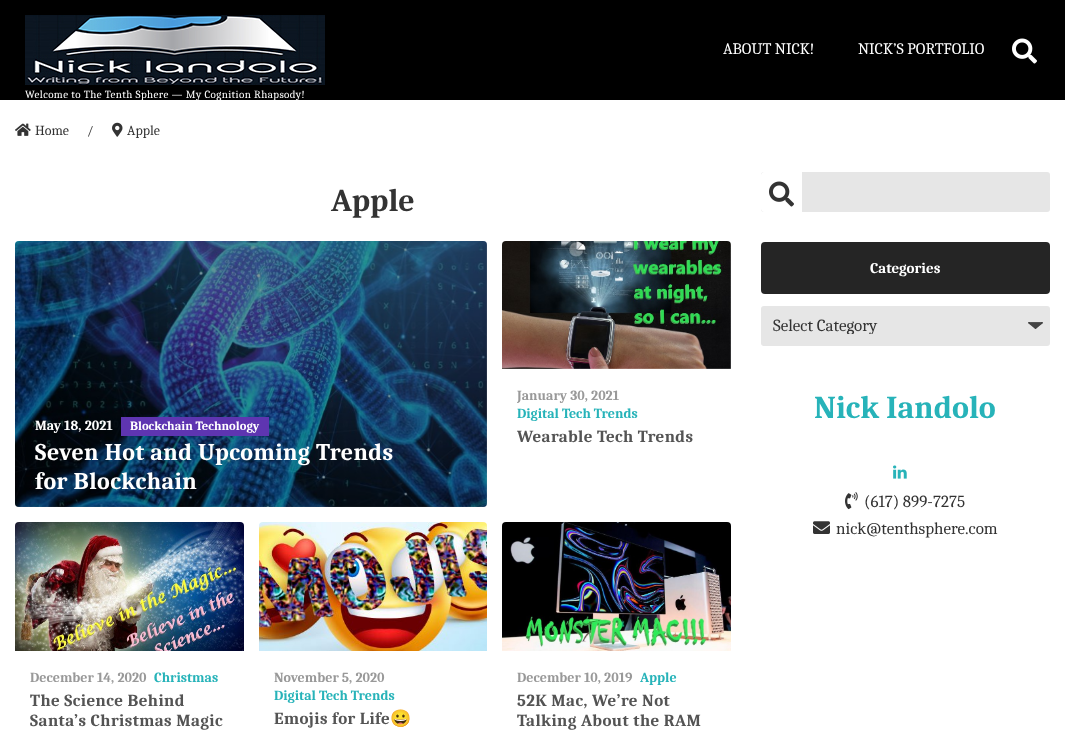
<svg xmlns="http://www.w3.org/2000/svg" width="1065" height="734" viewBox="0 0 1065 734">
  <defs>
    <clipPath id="clip1"><rect x="274" y="709" width="198" height="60"/></clipPath>
    <clipPath id="clip2"><rect x="773" y="317" width="265" height="17"/></clipPath>
  </defs>
  <rect width="100%" height="100%" fill="#ffffff"/>
  <rect x="0" y="0" width="1065" height="100" fill="#000000"/>
  <text x="723" y="54" font-family="Caladea" font-size="16" fill="#ffffff">ABOUT NICK!</text>
  <text x="858" y="54" font-family="Caladea" font-size="16" fill="#ffffff">NICK’S PORTFOLIO</text>
  <image x="1012" y="38" width="25" height="26" href="img1.png"/>
  <image x="25" y="15" width="300" height="70" href="img2.png"/>
  <text x="25" y="98" font-family="Caladea" font-size="11" letter-spacing="0.4" fill="#ffffff">Welcome to The Tenth Sphere — My Cognition Rhapsody!</text>
  <image x="15" y="123" width="16" height="13" href="img3.png"/>
  <text x="35" y="135" font-family="Caladea" font-size="14" fill="#333333">Home</text>
  <text x="87" y="135" font-family="Caladea" font-size="13" fill="#333333">/</text>
  <image x="112" y="122" width="11" height="15" href="img4.png"/>
  <text x="127" y="135" font-family="Caladea" font-size="14" fill="#333333">Apple</text>
  <text x="331" y="211" font-family="Caladea" font-size="32" font-weight="bold" fill="#333333">Apple</text>
  <image x="15" y="241" width="472" height="266" href="img5.png"/>
  <rect x="15" y="241" width="472" height="266" rx="4" fill="#000000" fill-opacity="0.4"/>
  <text x="35" y="430" font-family="Caladea" font-size="14" font-weight="bold" fill="#ffffff">May 18, 2021</text>
  <rect x="121" y="417" width="148" height="19" fill="#5e35b1"/>
  <text x="130" y="430" font-family="Caladea" font-size="12.6" font-weight="bold" fill="#ffffff">Blockchain Technology</text>
  <text x="35" y="460" font-family="Caladea" font-size="24" font-weight="bold" letter-spacing="0.4" fill="#ffffff">Seven Hot and Upcoming Trends</text>
  <text x="35" y="489" font-family="Caladea" font-size="24" font-weight="bold" letter-spacing="0.4" fill="#ffffff">for Blockchain</text>
  <image x="502" y="241" width="229" height="128" href="img6.png"/>
  <text x="517" y="400" font-family="Caladea" font-size="14" font-weight="bold" fill="#999999">January 30, 2021</text>
  <text x="517" y="418" font-family="Caladea" font-size="14" font-weight="bold" fill="#27b3b9">Digital Tech Trends</text>
  <text x="517" y="442" font-family="Caladea" font-size="17" font-weight="bold" letter-spacing="0.4" fill="#545454">Wearable Tech Trends</text>
  <image x="15" y="522" width="229" height="129" href="img7.png"/>
  <text x="30" y="682" font-family="Caladea" font-size="14" font-weight="bold" fill="#999999">December 14, 2020</text>
  <text x="154" y="682" font-family="Caladea" font-size="14" font-weight="bold" fill="#27b3b9">Christmas</text>
  <text x="30" y="706" font-family="Caladea" font-size="17" font-weight="bold" letter-spacing="0.4" fill="#545454">The Science Behind</text>
  <text x="30" y="726" font-family="Caladea" font-size="17" font-weight="bold" letter-spacing="0.4" fill="#545454">Santa’s Christmas Magic</text>
  <image x="259" y="522" width="228" height="129" href="img8.png"/>
  <text x="274" y="682" font-family="Caladea" font-size="14" font-weight="bold" fill="#999999">November 5, 2020</text>
  <text x="274" y="700" font-family="Caladea" font-size="14" font-weight="bold" fill="#27b3b9">Digital Tech Trends</text>
  <text x="274" y="724" font-family="Caladea" font-size="17" font-weight="bold" letter-spacing="0.4" fill="#545454">Emojis for Life</text>
  <g clip-path="url(#clip1)">
    <text x="390" y="724" font-family="Noto Color Emoji" font-size="17" font-weight="bold" letter-spacing="0.4" fill="#545454">😀</text>
  </g>
  <image x="502" y="522" width="229" height="129" href="img9.png"/>
  <text x="517" y="682" font-family="Caladea" font-size="14" font-weight="bold" fill="#999999">December 10, 2019</text>
  <text x="640" y="682" font-family="Caladea" font-size="14" font-weight="bold" fill="#27b3b9">Apple</text>
  <text x="517" y="706" font-family="Caladea" font-size="17" font-weight="bold" letter-spacing="0.4" fill="#545454">52K Mac, We’re Not</text>
  <text x="517" y="726" font-family="Caladea" font-size="17" font-weight="bold" letter-spacing="0.4" fill="#545454">Talking About the RAM</text>
  <rect x="761" y="172" width="289" height="40" rx="3" fill="#e6e6e6"/>
  <path d="M764 172H802V212H764C762.5 212 761 210.5 761 209V175C761 173.5 762.5 172 764 172Z" fill="#ffffff"/>
  <image x="769" y="181" width="25" height="26" href="img10.png"/>
  <rect x="761" y="242" width="289" height="52" rx="4" fill="#252525"/>
  <text x="870" y="273" font-family="Caladea" font-size="15" font-weight="bold" fill="#ffffff">Categories</text>
  <rect x="761" y="306" width="289" height="40" rx="3" fill="#e6e6e6"/>
  <image x="1028" y="322" width="15" height="7" href="img11.png"/>
  <g clip-path="url(#clip2)">
    <text x="773" y="331" font-family="Caladea" font-size="17" fill="#333333">Select Category</text>
  </g>
  <text x="814" y="418" font-family="Caladea" font-size="32" font-weight="bold" fill="#27b3b9">Nick Iandolo</text>
  <image x="893" y="465" width="14" height="14" href="img12.png"/>
  <image x="845" y="492" width="13" height="18" href="img13.png"/>
  <text x="864" y="507" font-family="Caladea" font-size="17" fill="#333333">(617) 899-7275</text>
  <image x="813" y="521" width="17" height="13" href="img14.png"/>
  <text x="836" y="534" font-family="Caladea" font-size="17" fill="#333333">nick@tenthsphere.com</text>
</svg>
